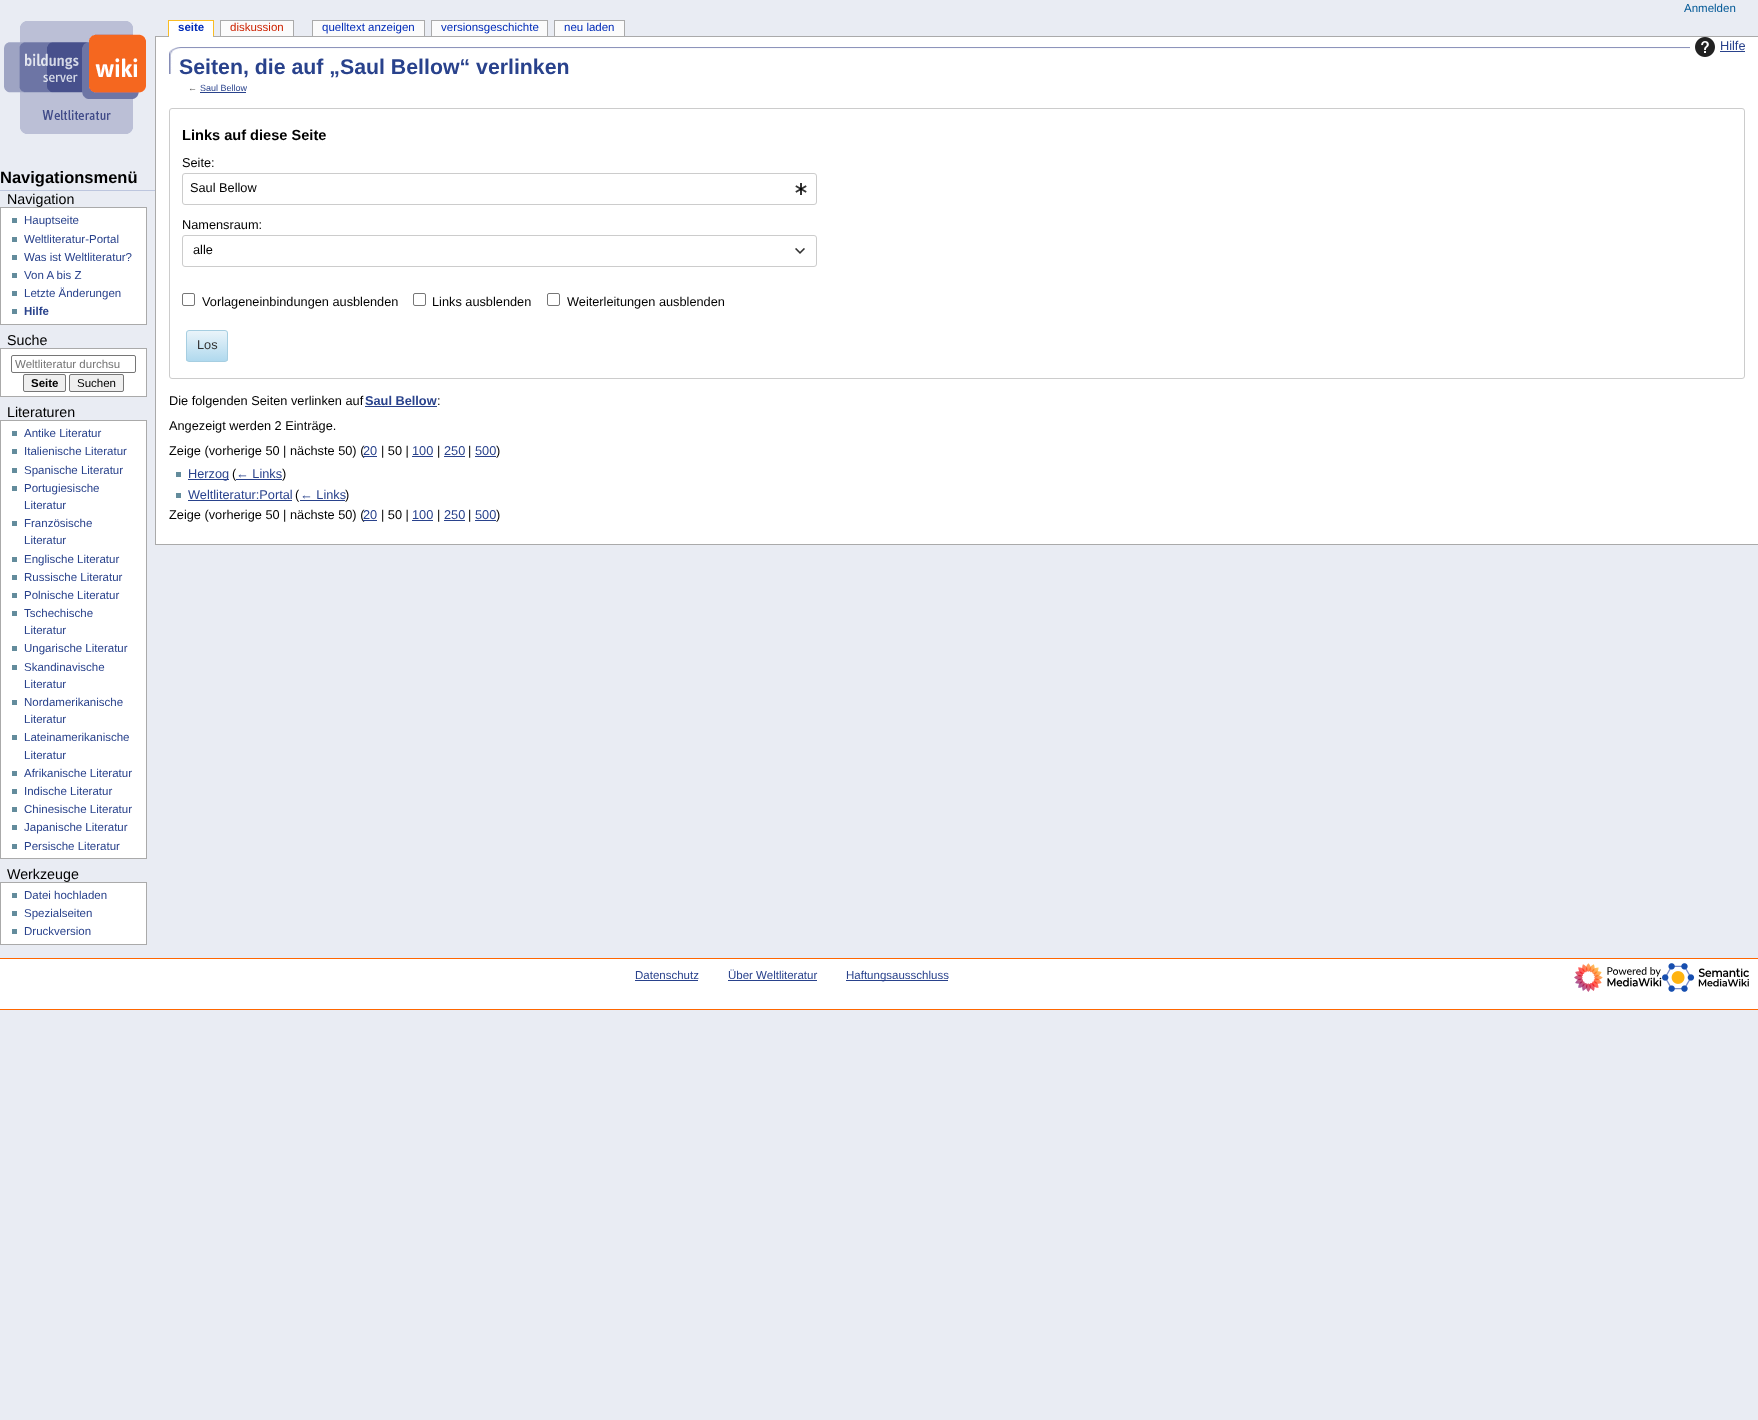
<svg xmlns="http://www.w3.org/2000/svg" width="1758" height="1420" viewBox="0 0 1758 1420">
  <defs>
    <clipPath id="clip1"><rect x="186" y="330" width="42" height="32" rx="3"/></clipPath>
    <linearGradient id="g1" gradientUnits="userSpaceOnUse" x1="207" y1="331" x2="207" y2="361"><stop offset="0" stop-color="#eaf4fa"/><stop offset="1" stop-color="#b0d9ee"/></linearGradient>
  </defs>
  <rect width="100%" height="100%" fill="#e9ecf3"/>
  <text x="1684" y="12" font-family="Liberation Sans" font-size="11.5" fill="#005896">Anmelden</text>
  <image x="4" y="21" width="142" height="113" href="img1.png"/>
  <rect x="155" y="36" width="1603" height="1" fill="#aaaaaa"/>
  <rect x="169" y="21" width="44" height="16" fill="#ffffff"/>
  <text x="178" y="31" font-family="Liberation Sans" font-size="11.5" font-weight="bold" fill="#002bb8">seite</text>
  <rect x="168" y="20" width="46" height="1" fill="#fabd23"/>
  <rect x="213" y="20" width="1" height="16" fill="#fabd23"/>
  <rect x="168" y="20" width="1" height="16" fill="#fabd23"/>
  <rect x="221" y="21" width="72" height="15" fill="#fbfbfb"/>
  <text x="230" y="31" font-family="Liberation Sans" font-size="11.5" fill="#cc2200">diskussion</text>
  <rect x="220" y="20" width="74" height="1" fill="#aaaaaa"/>
  <rect x="293" y="20" width="1" height="16" fill="#aaaaaa"/>
  <rect x="220" y="20" width="1" height="16" fill="#aaaaaa"/>
  <rect x="313" y="21" width="111" height="15" fill="#fbfbfb"/>
  <text x="322" y="31" font-family="Liberation Sans" font-size="11.5" fill="#002bb8">quelltext anzeigen</text>
  <rect x="312" y="20" width="113" height="1" fill="#aaaaaa"/>
  <rect x="424" y="20" width="1" height="16" fill="#aaaaaa"/>
  <rect x="312" y="20" width="1" height="16" fill="#aaaaaa"/>
  <rect x="432" y="21" width="115" height="15" fill="#fbfbfb"/>
  <text x="441" y="31" font-family="Liberation Sans" font-size="11.5" fill="#002bb8">versionsgeschichte</text>
  <rect x="431" y="20" width="117" height="1" fill="#aaaaaa"/>
  <rect x="547" y="20" width="1" height="16" fill="#aaaaaa"/>
  <rect x="431" y="20" width="1" height="16" fill="#aaaaaa"/>
  <rect x="555" y="21" width="69" height="15" fill="#fbfbfb"/>
  <text x="564" y="31" font-family="Liberation Sans" font-size="11.5" fill="#002bb8">neu laden</text>
  <rect x="554" y="20" width="71" height="1" fill="#aaaaaa"/>
  <rect x="624" y="20" width="1" height="16" fill="#aaaaaa"/>
  <rect x="554" y="20" width="1" height="16" fill="#aaaaaa"/>
  <rect x="0" y="190" width="155" height="1" fill="#bdc6de"/>
  <text x="0" y="183" font-family="Liberation Sans" font-size="16.5" font-weight="bold" fill="#000000">Navigationsmenü</text>
  <text x="7" y="204" font-family="Liberation Sans" font-size="14.25" fill="#000000">Navigation</text>
  <rect x="0.5" y="207.5" width="146" height="117" fill="#ffffff" stroke="#aaaaaa"/>
  <rect x="12" y="218" width="5" height="5" fill="#638c9c"/>
  <text x="24" y="224" font-family="Liberation Sans" font-size="11.5" fill="#29428c">Hauptseite</text>
  <rect x="12" y="237" width="5" height="5" fill="#638c9c"/>
  <text x="24" y="243" font-family="Liberation Sans" font-size="11.5" fill="#29428c">Weltliteratur-Portal</text>
  <rect x="12" y="255" width="5" height="5" fill="#638c9c"/>
  <text x="24" y="261" font-family="Liberation Sans" font-size="11.5" fill="#29428c">Was ist Weltliteratur?</text>
  <rect x="12" y="273" width="5" height="5" fill="#638c9c"/>
  <text x="24" y="279" font-family="Liberation Sans" font-size="11.5" fill="#29428c">Von A bis Z</text>
  <rect x="12" y="291" width="5" height="5" fill="#638c9c"/>
  <text x="24" y="297" font-family="Liberation Sans" font-size="11.5" fill="#29428c">Letzte Änderungen</text>
  <rect x="12" y="309" width="5" height="5" fill="#638c9c"/>
  <text x="24" y="315" font-family="Liberation Sans" font-size="11.5" font-weight="bold" fill="#29428c">Hilfe</text>
  <text x="7" y="345" font-family="Liberation Sans" font-size="14.25" fill="#000000">Suche</text>
  <rect x="0.5" y="348.5" width="146" height="48" fill="#ffffff" stroke="#aaaaaa"/>
  <rect x="11.5" y="355.5" width="124" height="17" rx="1.5" fill="none" stroke="#767676"/>
  <text x="15" y="368" font-family="Liberation Sans" font-size="11.5" fill="#757575">Weltliteratur durchsu</text>
  <rect x="23.5" y="374.5" width="42" height="17" rx="1.5" fill="#efefef" stroke="#767676"/>
  <text x="31" y="387" font-family="Liberation Sans" font-size="11.5" font-weight="bold" fill="#000000">Seite</text>
  <rect x="69.5" y="374.5" width="54" height="17" rx="1.5" fill="#efefef" stroke="#767676"/>
  <text x="77" y="387" font-family="Liberation Sans" font-size="11.5" fill="#000000">Suchen</text>
  <text x="7" y="417" font-family="Liberation Sans" font-size="14.25" fill="#000000">Literaturen</text>
  <rect x="0.5" y="420.5" width="146" height="438" fill="#ffffff" stroke="#aaaaaa"/>
  <rect x="12" y="431" width="5" height="5" fill="#638c9c"/>
  <text x="24" y="437" font-family="Liberation Sans" font-size="11.5" fill="#29428c">Antike Literatur</text>
  <rect x="12" y="449" width="5" height="5" fill="#638c9c"/>
  <text x="24" y="455" font-family="Liberation Sans" font-size="11.5" fill="#29428c">Italienische Literatur</text>
  <rect x="12" y="468" width="5" height="5" fill="#638c9c"/>
  <text x="24" y="474" font-family="Liberation Sans" font-size="11.5" fill="#29428c">Spanische Literatur</text>
  <rect x="12" y="486" width="5" height="5" fill="#638c9c"/>
  <text x="24" y="492" font-family="Liberation Sans" font-size="11.5" fill="#29428c">Portugiesische</text>
  <text x="24" y="509" font-family="Liberation Sans" font-size="11.5" fill="#29428c">Literatur</text>
  <rect x="12" y="521" width="5" height="5" fill="#638c9c"/>
  <text x="24" y="527" font-family="Liberation Sans" font-size="11.5" fill="#29428c">Französische</text>
  <text x="24" y="544" font-family="Liberation Sans" font-size="11.5" fill="#29428c">Literatur</text>
  <rect x="12" y="557" width="5" height="5" fill="#638c9c"/>
  <text x="24" y="563" font-family="Liberation Sans" font-size="11.5" fill="#29428c">Englische Literatur</text>
  <rect x="12" y="575" width="5" height="5" fill="#638c9c"/>
  <text x="24" y="581" font-family="Liberation Sans" font-size="11.5" fill="#29428c">Russische Literatur</text>
  <rect x="12" y="593" width="5" height="5" fill="#638c9c"/>
  <text x="24" y="599" font-family="Liberation Sans" font-size="11.5" fill="#29428c">Polnische Literatur</text>
  <rect x="12" y="611" width="5" height="5" fill="#638c9c"/>
  <text x="24" y="617" font-family="Liberation Sans" font-size="11.5" fill="#29428c">Tschechische</text>
  <text x="24" y="634" font-family="Liberation Sans" font-size="11.5" fill="#29428c">Literatur</text>
  <rect x="12" y="646" width="5" height="5" fill="#638c9c"/>
  <text x="24" y="652" font-family="Liberation Sans" font-size="11.5" fill="#29428c">Ungarische Literatur</text>
  <rect x="12" y="665" width="5" height="5" fill="#638c9c"/>
  <text x="24" y="671" font-family="Liberation Sans" font-size="11.5" fill="#29428c">Skandinavische</text>
  <text x="24" y="688" font-family="Liberation Sans" font-size="11.5" fill="#29428c">Literatur</text>
  <rect x="12" y="700" width="5" height="5" fill="#638c9c"/>
  <text x="24" y="706" font-family="Liberation Sans" font-size="11.5" fill="#29428c">Nordamerikanische</text>
  <text x="24" y="723" font-family="Liberation Sans" font-size="11.5" fill="#29428c">Literatur</text>
  <rect x="12" y="735" width="5" height="5" fill="#638c9c"/>
  <text x="24" y="741" font-family="Liberation Sans" font-size="11.5" fill="#29428c">Lateinamerikanische</text>
  <text x="24" y="759" font-family="Liberation Sans" font-size="11.5" fill="#29428c">Literatur</text>
  <rect x="12" y="771" width="5" height="5" fill="#638c9c"/>
  <text x="24" y="777" font-family="Liberation Sans" font-size="11.5" fill="#29428c">Afrikanische Literatur</text>
  <rect x="12" y="789" width="5" height="5" fill="#638c9c"/>
  <text x="24" y="795" font-family="Liberation Sans" font-size="11.5" fill="#29428c">Indische Literatur</text>
  <rect x="12" y="807" width="5" height="5" fill="#638c9c"/>
  <text x="24" y="813" font-family="Liberation Sans" font-size="11.5" fill="#29428c">Chinesische Literatur</text>
  <rect x="12" y="825" width="5" height="5" fill="#638c9c"/>
  <text x="24" y="831" font-family="Liberation Sans" font-size="11.5" fill="#29428c">Japanische Literatur</text>
  <rect x="12" y="844" width="5" height="5" fill="#638c9c"/>
  <text x="24" y="850" font-family="Liberation Sans" font-size="11.5" fill="#29428c">Persische Literatur</text>
  <text x="7" y="879" font-family="Liberation Sans" font-size="14.25" fill="#000000">Werkzeuge</text>
  <rect x="0.5" y="882.5" width="146" height="62" fill="#ffffff" stroke="#aaaaaa"/>
  <rect x="12" y="893" width="5" height="5" fill="#638c9c"/>
  <text x="24" y="899" font-family="Liberation Sans" font-size="11.5" fill="#29428c">Datei hochladen</text>
  <rect x="12" y="911" width="5" height="5" fill="#638c9c"/>
  <text x="24" y="917" font-family="Liberation Sans" font-size="11.5" fill="#29428c">Spezialseiten</text>
  <rect x="12" y="929" width="5" height="5" fill="#638c9c"/>
  <text x="24" y="935" font-family="Liberation Sans" font-size="11.5" fill="#29428c">Druckversion</text>
  <rect x="156" y="37" width="1602" height="507" fill="#ffffff"/>
  <rect x="155" y="544" width="1603" height="1" fill="#aaaaaa"/>
  <rect x="155" y="36" width="1" height="509" fill="#aaaaaa"/>
  <image x="1695" y="37" width="20" height="20" href="img2.png"/>
  <text x="1720" y="50" font-family="Liberation Sans" font-size="12.75" fill="#29428c">Hilfe</text>
  <rect x="1720" y="51" width="25" height="1" fill="#29428c"/>
  <image x="169" y="47" width="1521" height="27" href="img3.png"/>
  <text x="179" y="74" font-family="Liberation Sans" font-size="21.3" font-weight="bold" fill="#29428c">Seiten, die auf „Saul Bellow“ verlinken</text>
  <text x="188" y="91" font-family="Liberation Sans" font-size="9" fill="#555555">←</text>
  <text x="200" y="91" font-family="Liberation Sans" font-size="9" fill="#29428c">Saul Bellow</text>
  <rect x="200" y="92" width="46" height="1" fill="#29428c"/>
  <rect x="169.5" y="108.5" width="1575" height="270" rx="2.5" fill="none" stroke="#cccccc"/>
  <text x="182" y="140" font-family="Liberation Sans" font-size="14.6" font-weight="bold" fill="#000000">Links auf diese Seite</text>
  <text x="182" y="167" font-family="Liberation Sans" font-size="12.75" fill="#000000">Seite:</text>
  <rect x="182.5" y="173.5" width="634" height="31" rx="2.5" fill="none" stroke="#cccccc"/>
  <text x="190" y="192" font-family="Liberation Sans" font-size="12.75" fill="#000000">Saul Bellow</text>
  <image x="795" y="183" width="12" height="12" href="img4.png"/>
  <text x="182" y="229" font-family="Liberation Sans" font-size="12.75" fill="#000000">Namensraum:</text>
  <rect x="182.5" y="235.5" width="634" height="31" rx="2.5" fill="none" stroke="#cccccc"/>
  <text x="193" y="254" font-family="Liberation Sans" font-size="12.75" fill="#000000">alle</text>
  <image x="795" y="248" width="10" height="6" href="img5.png"/>
  <rect x="182.5" y="293.5" width="12" height="12" rx="1.5" fill="none" stroke="#767676"/>
  <text x="202" y="306" font-family="Liberation Sans" font-size="12.75" fill="#000000">Vorlageneinbindungen ausblenden</text>
  <rect x="413.5" y="293.5" width="12" height="12" rx="1.5" fill="none" stroke="#767676"/>
  <text x="432" y="306" font-family="Liberation Sans" font-size="12.75" fill="#000000">Links ausblenden</text>
  <rect x="547.5" y="293.5" width="12" height="12" rx="1.5" fill="none" stroke="#767676"/>
  <text x="567" y="306" font-family="Liberation Sans" font-size="12.75" fill="#000000">Weiterleitungen ausblenden</text>
  <g clip-path="url(#clip1)">
    <rect x="186" y="331" width="42" height="30" fill="url(#g1)"/>
  </g>
  <rect x="186.5" y="330.5" width="41" height="31" rx="2.5" fill="none" stroke="#a6cee1"/>
  <text x="197" y="349" font-family="Liberation Sans" font-size="12.75" fill="#333333">Los</text>
  <text x="169" y="405" font-family="Liberation Sans" font-size="12.75" fill="#000000">Die folgenden Seiten verlinken auf</text>
  <text x="365" y="405" font-family="Liberation Sans" font-size="12.75" font-weight="bold" fill="#29428c">Saul Bellow</text>
  <rect x="365" y="406" width="72" height="1" fill="#29428c"/>
  <text x="437" y="405" font-family="Liberation Sans" font-size="12.75" fill="#000000">:</text>
  <text x="169" y="430" font-family="Liberation Sans" font-size="12.75" fill="#000000">Angezeigt werden 2 Einträge.</text>
  <text x="169" y="455" font-family="Liberation Sans" font-size="12.75" fill="#000000">Zeige (vorherige 50 | nächste 50) (</text>
  <text x="363" y="455" font-family="Liberation Sans" font-size="12.75" fill="#29428c">20</text>
  <rect x="363" y="456" width="14" height="1" fill="#29428c"/>
  <text x="381" y="455" font-family="Liberation Sans" font-size="12.75" fill="#000000">| 50 |</text>
  <text x="412" y="455" font-family="Liberation Sans" font-size="12.75" fill="#29428c">100</text>
  <rect x="412" y="456" width="21" height="1" fill="#29428c"/>
  <text x="437" y="455" font-family="Liberation Sans" font-size="12.75" fill="#000000">|</text>
  <text x="444" y="455" font-family="Liberation Sans" font-size="12.75" fill="#29428c">250</text>
  <rect x="444" y="456" width="21" height="1" fill="#29428c"/>
  <text x="468" y="455" font-family="Liberation Sans" font-size="12.75" fill="#000000">|</text>
  <text x="475" y="455" font-family="Liberation Sans" font-size="12.75" fill="#29428c">500</text>
  <rect x="475" y="456" width="21" height="1" fill="#29428c"/>
  <text x="496" y="455" font-family="Liberation Sans" font-size="12.75" fill="#000000">)</text>
  <rect x="176" y="472" width="5" height="5" fill="#638c9c"/>
  <rect x="188" y="479" width="41" height="1" fill="#29428c"/>
  <text x="188" y="478" font-family="Liberation Sans" font-size="12.75" fill="#29428c">Herzog</text>
  <text x="232" y="478" font-family="Liberation Sans" font-size="12.75" fill="#000000">(</text>
  <rect x="236" y="479" width="46" height="1" fill="#29428c"/>
  <text x="236" y="478" font-family="Liberation Sans" font-size="12.75" fill="#29428c">← Links</text>
  <text x="282" y="478" font-family="Liberation Sans" font-size="12.75" fill="#000000">)</text>
  <rect x="176" y="493" width="5" height="5" fill="#638c9c"/>
  <text x="188" y="499" font-family="Liberation Sans" font-size="12.75" fill="#29428c">Weltliteratur:Portal</text>
  <rect x="188" y="500" width="104" height="1" fill="#29428c"/>
  <text x="295" y="499" font-family="Liberation Sans" font-size="12.75" fill="#000000">(</text>
  <rect x="300" y="500" width="45" height="1" fill="#29428c"/>
  <text x="300" y="499" font-family="Liberation Sans" font-size="12.75" fill="#29428c">← Links</text>
  <text x="345" y="499" font-family="Liberation Sans" font-size="12.75" fill="#000000">)</text>
  <text x="169" y="519" font-family="Liberation Sans" font-size="12.75" fill="#000000">Zeige (vorherige 50 | nächste 50) (</text>
  <text x="363" y="519" font-family="Liberation Sans" font-size="12.75" fill="#29428c">20</text>
  <rect x="363" y="520" width="14" height="1" fill="#29428c"/>
  <text x="381" y="519" font-family="Liberation Sans" font-size="12.75" fill="#000000">| 50 |</text>
  <text x="412" y="519" font-family="Liberation Sans" font-size="12.75" fill="#29428c">100</text>
  <rect x="412" y="520" width="21" height="1" fill="#29428c"/>
  <text x="437" y="519" font-family="Liberation Sans" font-size="12.75" fill="#000000">|</text>
  <text x="444" y="519" font-family="Liberation Sans" font-size="12.75" fill="#29428c">250</text>
  <rect x="444" y="520" width="21" height="1" fill="#29428c"/>
  <text x="468" y="519" font-family="Liberation Sans" font-size="12.75" fill="#000000">|</text>
  <text x="475" y="519" font-family="Liberation Sans" font-size="12.75" fill="#29428c">500</text>
  <rect x="475" y="520" width="21" height="1" fill="#29428c"/>
  <text x="496" y="519" font-family="Liberation Sans" font-size="12.75" fill="#000000">)</text>
  <rect x="0" y="959" width="1758" height="50" fill="#ffffff"/>
  <rect x="0" y="958" width="1758" height="1" fill="#ff6600"/>
  <rect x="0" y="1009" width="1758" height="1" fill="#ff6600"/>
  <text x="635" y="979" font-family="Liberation Sans" font-size="11.5" fill="#29428c">Datenschutz</text>
  <rect x="635" y="980" width="63" height="1" fill="#29428c"/>
  <text x="728" y="979" font-family="Liberation Sans" font-size="11.5" fill="#29428c">Über Weltliteratur</text>
  <rect x="728" y="980" width="89" height="1" fill="#29428c"/>
  <rect x="846" y="980" width="102" height="1" fill="#29428c"/>
  <text x="846" y="979" font-family="Liberation Sans" font-size="11.5" fill="#29428c">Haftungsausschluss</text>
  <image x="1574" y="963" width="88" height="29" href="img6.png"/>
  <image x="1662" y="963" width="87" height="29" href="img7.png"/>
</svg>
